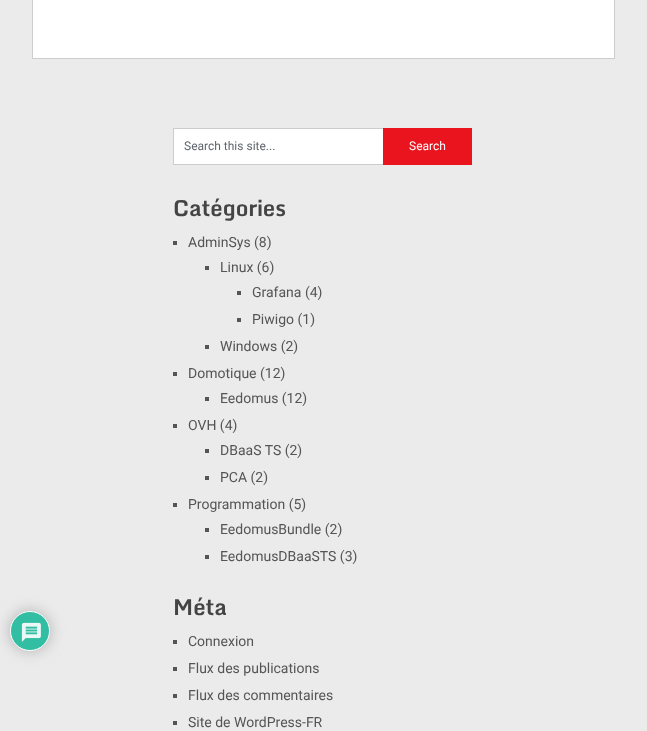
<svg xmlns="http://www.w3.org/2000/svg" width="647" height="731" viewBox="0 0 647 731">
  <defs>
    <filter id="blur1" x="-50%" y="-200%" width="200%" height="500%"><feGaussianBlur stdDeviation="7.5"/></filter>
  </defs>
  <rect width="100%" height="100%" fill="#ebebeb"/>
  <rect x="10" y="611" width="40" height="40" rx="20" fill="#b1b1b1" filter="url(#blur1)"/>
  <circle cx="30" cy="631" r="19.5" fill="#32bea2" stroke="#fdfdfd"/>
  <image x="21" y="622" width="20" height="20" href="img1.png"/>
  <rect x="32.5" y="-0.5" width="582" height="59" fill="#ffffff" stroke="#cdcdcd"/>
  <rect x="174" y="129" width="209" height="35" fill="#ffffff"/>
  <rect x="173" y="128" width="210" height="1" fill="#cccccc"/>
  <rect x="173" y="164" width="210" height="1" fill="#cccccc"/>
  <rect x="173" y="128" width="1" height="37" fill="#cccccc"/>
  <text x="184" y="150" font-family="Roboto" font-size="12" fill="#5e656d">Search this site...</text>
  <rect x="383" y="128" width="89" height="37" fill="#ea141f"/>
  <text x="409" y="150" font-family="Roboto" font-size="12" fill="#ffffff">Search</text>
  <text x="173" y="216" font-family="Monda" font-size="22" font-weight="bold" fill="#444444">Catégories</text>
  <rect x="173" y="241" width="4" height="4" fill="#555555"/>
  <text x="188" y="247" font-family="Roboto" font-size="14" fill="#555555">AdminSys (8)</text>
  <rect x="205" y="266" width="4" height="4" fill="#555555"/>
  <text x="220" y="272" font-family="Roboto" font-size="14" fill="#555555">Linux (6)</text>
  <rect x="237" y="291" width="4" height="4" fill="#555555"/>
  <text x="252" y="297" font-family="Roboto" font-size="14" fill="#555555">Grafana (4)</text>
  <rect x="237" y="318" width="4" height="4" fill="#555555"/>
  <text x="252" y="324" font-family="Roboto" font-size="14" fill="#555555">Piwigo (1)</text>
  <rect x="205" y="345" width="4" height="4" fill="#555555"/>
  <text x="220" y="351" font-family="Roboto" font-size="14" fill="#555555">Windows (2)</text>
  <rect x="173" y="372" width="4" height="4" fill="#555555"/>
  <text x="188" y="378" font-family="Roboto" font-size="14" fill="#555555">Domotique (12)</text>
  <rect x="205" y="397" width="4" height="4" fill="#555555"/>
  <text x="220" y="403" font-family="Roboto" font-size="14" fill="#555555">Eedomus (12)</text>
  <rect x="173" y="424" width="4" height="4" fill="#555555"/>
  <text x="188" y="430" font-family="Roboto" font-size="14" fill="#555555">OVH (4)</text>
  <rect x="205" y="449" width="4" height="4" fill="#555555"/>
  <text x="220" y="455" font-family="Roboto" font-size="14" fill="#555555">DBaaS TS (2)</text>
  <rect x="205" y="476" width="4" height="4" fill="#555555"/>
  <text x="220" y="482" font-family="Roboto" font-size="14" fill="#555555">PCA (2)</text>
  <rect x="173" y="503" width="4" height="4" fill="#555555"/>
  <text x="188" y="509" font-family="Roboto" font-size="14" fill="#555555">Programmation (5)</text>
  <rect x="205" y="528" width="4" height="4" fill="#555555"/>
  <text x="220" y="534" font-family="Roboto" font-size="14" fill="#555555">EedomusBundle (2)</text>
  <rect x="205" y="555" width="4" height="4" fill="#555555"/>
  <text x="220" y="561" font-family="Roboto" font-size="14" fill="#555555">EedomusDBaaSTS (3)</text>
  <text x="173" y="615" font-family="Monda" font-size="22" font-weight="bold" fill="#444444">Méta</text>
  <rect x="173" y="640" width="4" height="4" fill="#555555"/>
  <text x="188" y="646" font-family="Roboto" font-size="14" fill="#555555">Connexion</text>
  <rect x="173" y="667" width="4" height="4" fill="#555555"/>
  <text x="188" y="673" font-family="Roboto" font-size="14" fill="#555555">Flux des publications</text>
  <rect x="173" y="694" width="4" height="4" fill="#555555"/>
  <text x="188" y="700" font-family="Roboto" font-size="14" fill="#555555">Flux des commentaires</text>
  <rect x="173" y="721" width="4" height="4" fill="#555555"/>
  <text x="188" y="727" font-family="Roboto" font-size="14" fill="#555555">Site de WordPress-FR</text>
</svg>
